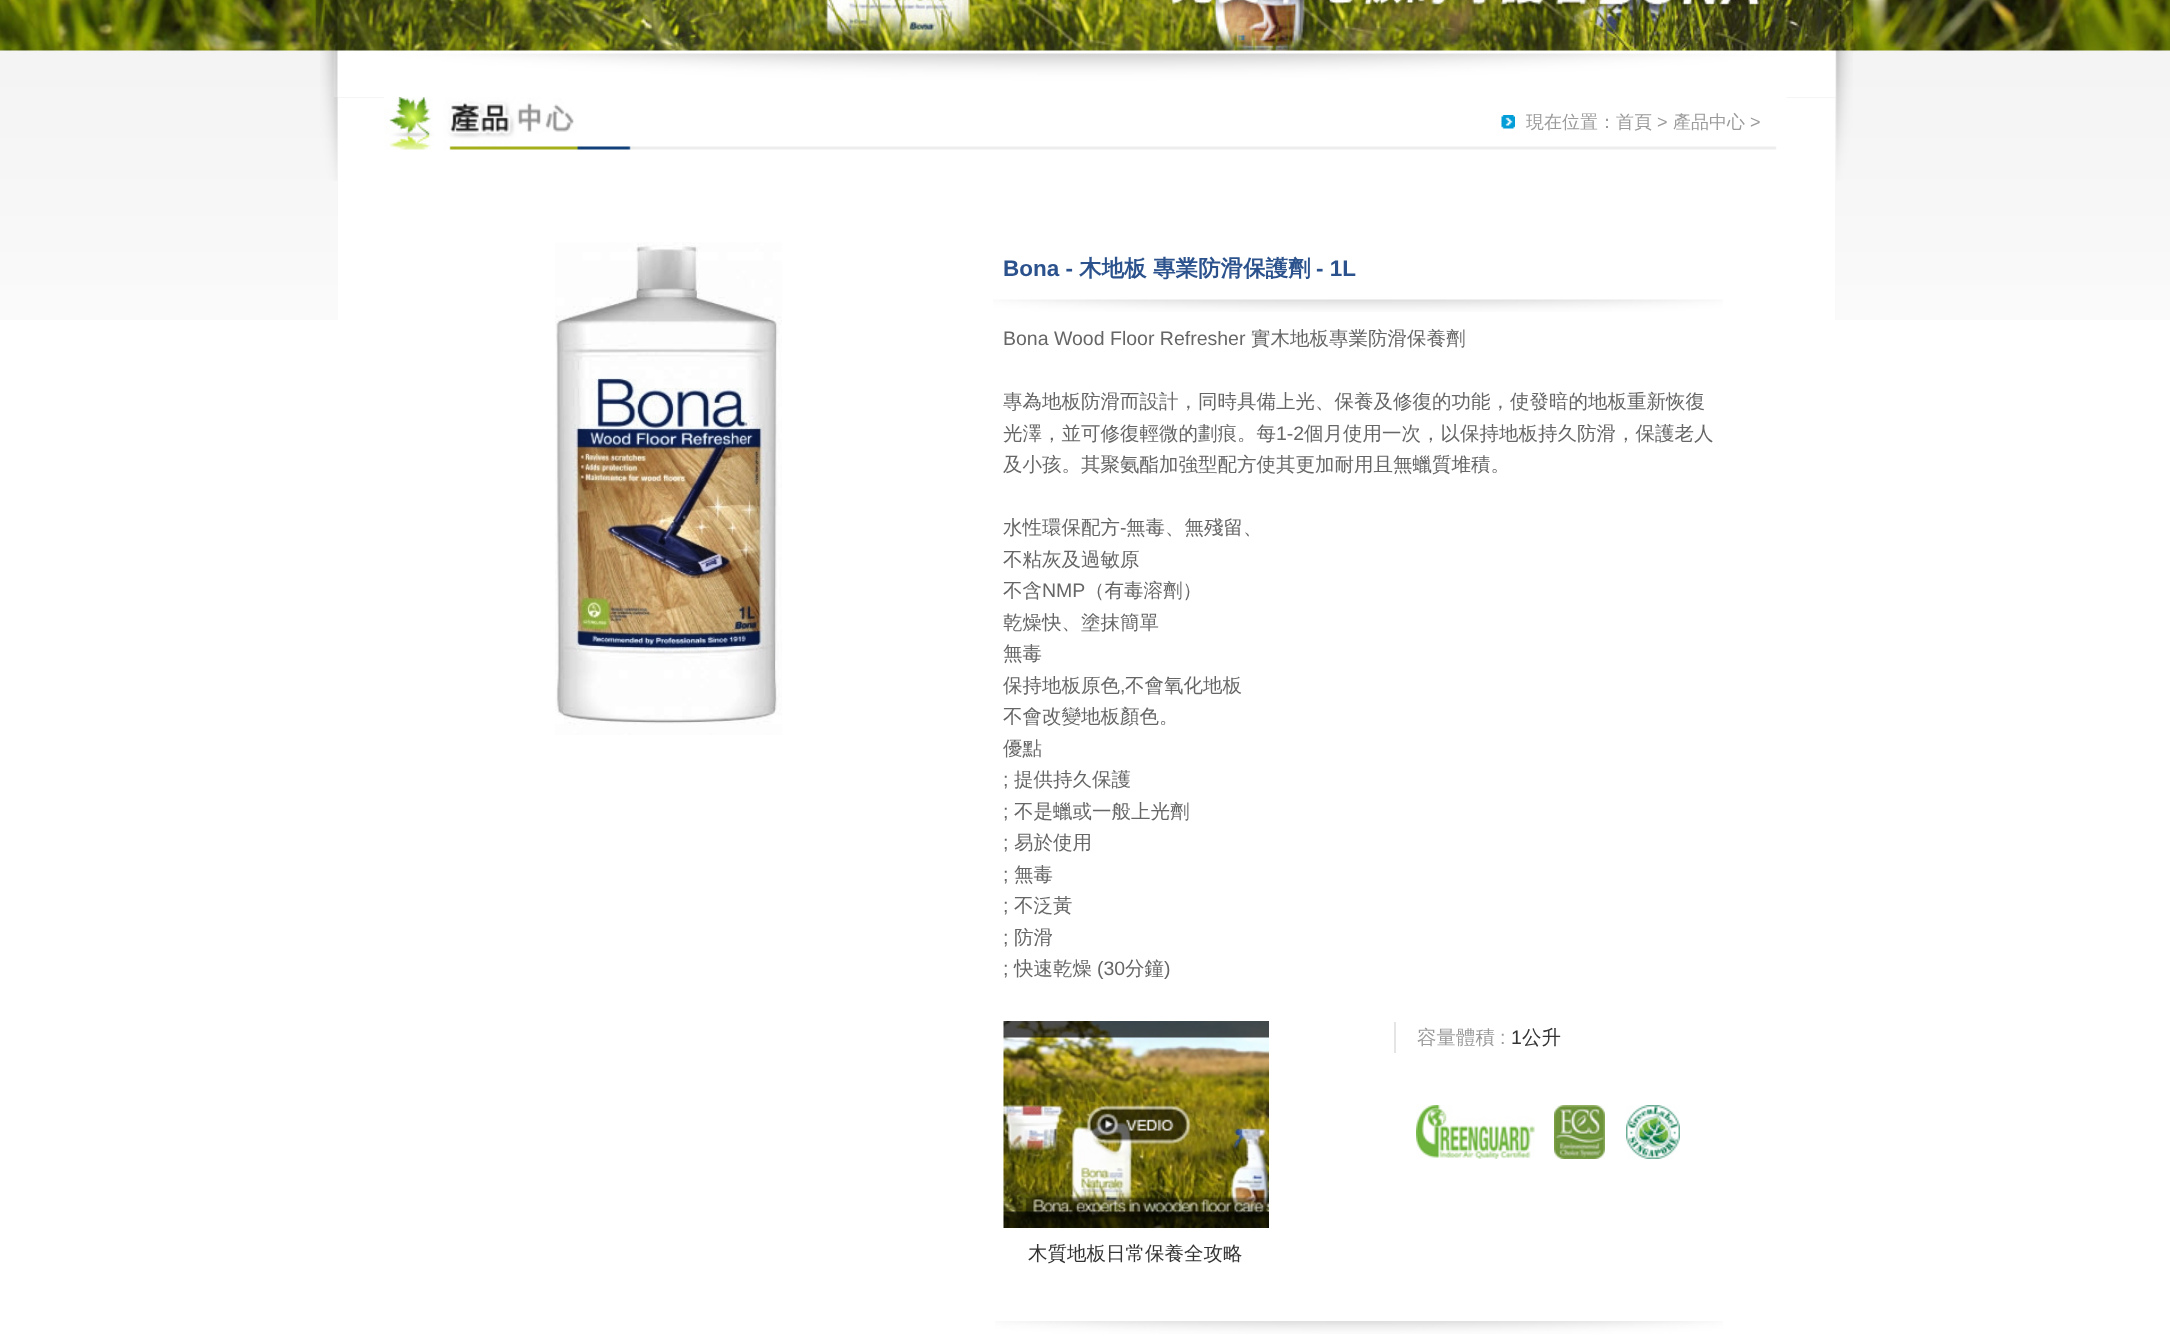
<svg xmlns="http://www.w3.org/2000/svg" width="2170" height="1341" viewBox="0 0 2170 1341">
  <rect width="100%" height="100%" fill="#ffffff"/>
  <image x="0" y="97" width="2170" height="223" href="img1.png"/>
  <image x="0" y="0" width="2170" height="97" href="img2.png"/>
  <image x="320" y="0" width="1533" height="181" href="img3.png"/>
  <rect x="338" y="98" width="1497" height="222" fill="#ffffff"/>
  <image x="384" y="97" width="1403" height="53" href="img4.png"/>
  <image x="1501" y="115" width="14" height="14" href="img5.png"/>
  <text x="1526" y="128" font-family="WenQuanYi Zen Hei" font-size="18" font-weight="500" fill="#9b9b9b">現在位置：首頁</text>
  <text x="1657" y="128" font-family="Liberation Sans" font-size="18" fill="#9b9b9b">&gt;</text>
  <text x="1673" y="128" font-family="WenQuanYi Zen Hei" font-size="18" font-weight="500" fill="#9b9b9b">產品中心</text>
  <text x="1750" y="128" font-family="Liberation Sans" font-size="18" fill="#9b9b9b">&gt;</text>
  <image x="555" y="242" width="227" height="493" href="img6.png"/>
  <image x="993" y="299" width="730" height="13" href="img7.png"/>
  <text x="1003" y="276" font-family="Liberation Sans" font-size="22.5" font-weight="bold" fill="#2b528c">Bona -</text>
  <text x="1079" y="276" font-family="WenQuanYi Zen Hei" font-size="22.5" font-weight="bold" fill="#2b528c">木地板</text>
  <text x="1153" y="276" font-family="WenQuanYi Zen Hei" font-size="22.5" font-weight="bold" fill="#2b528c">專業防滑保護劑</text>
  <text x="1316" y="276" font-family="Liberation Sans" font-size="22.5" font-weight="bold" fill="#2b528c">- 1L</text>
  <text x="1003" y="345" font-family="Liberation Sans" font-size="19.5" fill="#666666">Bona Wood Floor Refresher</text>
  <text x="1251" y="345" font-family="WenQuanYi Zen Hei" font-size="19.5" font-weight="500" fill="#666666">實木地板專業防滑保養劑</text>
  <text x="1003" y="408" font-family="WenQuanYi Zen Hei" font-size="19.5" font-weight="500" fill="#666666">專為地板防滑而設計，同時具備上光、保養及修復的功能，使發暗的地板重新恢復</text>
  <text x="1003" y="440" font-family="WenQuanYi Zen Hei" font-size="19.5" font-weight="500" fill="#666666">光澤，並可修復輕微的劃痕。每</text>
  <text x="1276" y="440" font-family="Liberation Sans" font-size="19.5" fill="#666666">1-2</text>
  <text x="1304" y="440" font-family="WenQuanYi Zen Hei" font-size="19.5" font-weight="500" fill="#666666">個月使用一次，以保持地板持久防滑，保護老人</text>
  <text x="1003" y="471" font-family="WenQuanYi Zen Hei" font-size="19.5" font-weight="500" fill="#666666">及小孩。其聚氨酯加強型配方使其更加耐用且無蠟質堆積。</text>
  <text x="1003" y="534" font-family="WenQuanYi Zen Hei" font-size="19.5" font-weight="500" fill="#666666">水性環保配方</text>
  <text x="1120" y="534" font-family="Liberation Sans" font-size="19.5" fill="#666666">-</text>
  <text x="1126" y="534" font-family="WenQuanYi Zen Hei" font-size="19.5" font-weight="500" fill="#666666">無毒、無殘留、</text>
  <text x="1003" y="566" font-family="WenQuanYi Zen Hei" font-size="19.5" font-weight="500" fill="#666666">不粘灰及過敏原</text>
  <text x="1003" y="597" font-family="WenQuanYi Zen Hei" font-size="19.5" font-weight="500" fill="#666666">不含</text>
  <text x="1042" y="597" font-family="Liberation Sans" font-size="19.5" fill="#666666">NMP</text>
  <text x="1085" y="597" font-family="WenQuanYi Zen Hei" font-size="19.5" font-weight="500" fill="#666666">（有毒溶劑）</text>
  <text x="1003" y="629" font-family="WenQuanYi Zen Hei" font-size="19.5" font-weight="500" fill="#666666">乾燥快、塗抹簡單</text>
  <text x="1003" y="660" font-family="WenQuanYi Zen Hei" font-size="19.5" font-weight="500" fill="#666666">無毒</text>
  <text x="1003" y="692" font-family="WenQuanYi Zen Hei" font-size="19.5" font-weight="500" fill="#666666">保持地板原色</text>
  <text x="1120" y="692" font-family="Liberation Sans" font-size="19.5" fill="#666666">,</text>
  <text x="1125" y="692" font-family="WenQuanYi Zen Hei" font-size="19.5" font-weight="500" fill="#666666">不會氧化地板</text>
  <text x="1003" y="723" font-family="WenQuanYi Zen Hei" font-size="19.5" font-weight="500" fill="#666666">不會改變地板顏色。</text>
  <text x="1003" y="755" font-family="WenQuanYi Zen Hei" font-size="19.5" font-weight="500" fill="#666666">優點</text>
  <text x="1003" y="786" font-family="Liberation Sans" font-size="19.5" fill="#666666">;</text>
  <text x="1014" y="786" font-family="WenQuanYi Zen Hei" font-size="19.5" font-weight="500" fill="#666666">提供持久保護</text>
  <text x="1003" y="818" font-family="Liberation Sans" font-size="19.5" fill="#666666">;</text>
  <text x="1014" y="818" font-family="WenQuanYi Zen Hei" font-size="19.5" font-weight="500" fill="#666666">不是蠟或一般上光劑</text>
  <text x="1003" y="849" font-family="Liberation Sans" font-size="19.5" fill="#666666">;</text>
  <text x="1014" y="849" font-family="WenQuanYi Zen Hei" font-size="19.5" font-weight="500" fill="#666666">易於使用</text>
  <text x="1003" y="881" font-family="Liberation Sans" font-size="19.5" fill="#666666">;</text>
  <text x="1014" y="881" font-family="WenQuanYi Zen Hei" font-size="19.5" font-weight="500" fill="#666666">無毒</text>
  <text x="1003" y="912" font-family="Liberation Sans" font-size="19.5" fill="#666666">;</text>
  <text x="1014" y="912" font-family="WenQuanYi Zen Hei" font-size="19.5" font-weight="500" fill="#666666">不泛黃</text>
  <text x="1003" y="944" font-family="Liberation Sans" font-size="19.5" fill="#666666">;</text>
  <text x="1014" y="944" font-family="WenQuanYi Zen Hei" font-size="19.5" font-weight="500" fill="#666666">防滑</text>
  <text x="1003" y="975" font-family="Liberation Sans" font-size="19.5" fill="#666666">;</text>
  <text x="1014" y="975" font-family="WenQuanYi Zen Hei" font-size="19.5" font-weight="500" fill="#666666">快速乾燥</text>
  <text x="1097" y="975" font-family="Liberation Sans" font-size="19.5" fill="#666666">(30</text>
  <text x="1125" y="975" font-family="WenQuanYi Zen Hei" font-size="19.5" font-weight="500" fill="#666666">分鐘</text>
  <text x="1164" y="975" font-family="Liberation Sans" font-size="19.5" fill="#666666">)</text>
  <rect x="1394" y="1022" width="2" height="31" fill="#e5e5e5"/>
  <text x="1417" y="1044" font-family="WenQuanYi Zen Hei" font-size="19.5" font-weight="500" fill="#9b9b9b">容量體積</text>
  <text x="1500" y="1044" font-family="Liberation Sans" font-size="19.5" fill="#9b9b9b">:</text>
  <text x="1511" y="1044" font-family="Liberation Sans" font-size="19.5" fill="#333333">1</text>
  <text x="1522" y="1044" font-family="WenQuanYi Zen Hei" font-size="19.5" font-weight="500" fill="#333333">公升</text>
  <image x="1416" y="1105" width="119" height="54" href="img8.png"/>
  <image x="1554" y="1105" width="51" height="54" href="img9.png"/>
  <image x="1626" y="1105" width="54" height="54" href="img10.png"/>
  <image x="1003" y="1021" width="266" height="207" href="img11.png"/>
  <text x="1028" y="1260" font-family="WenQuanYi Zen Hei" font-size="19.5" font-weight="500" fill="#333333">木質地板日常保養全攻略</text>
  <image x="995" y="1321" width="728" height="13" href="img12.png"/>
</svg>
